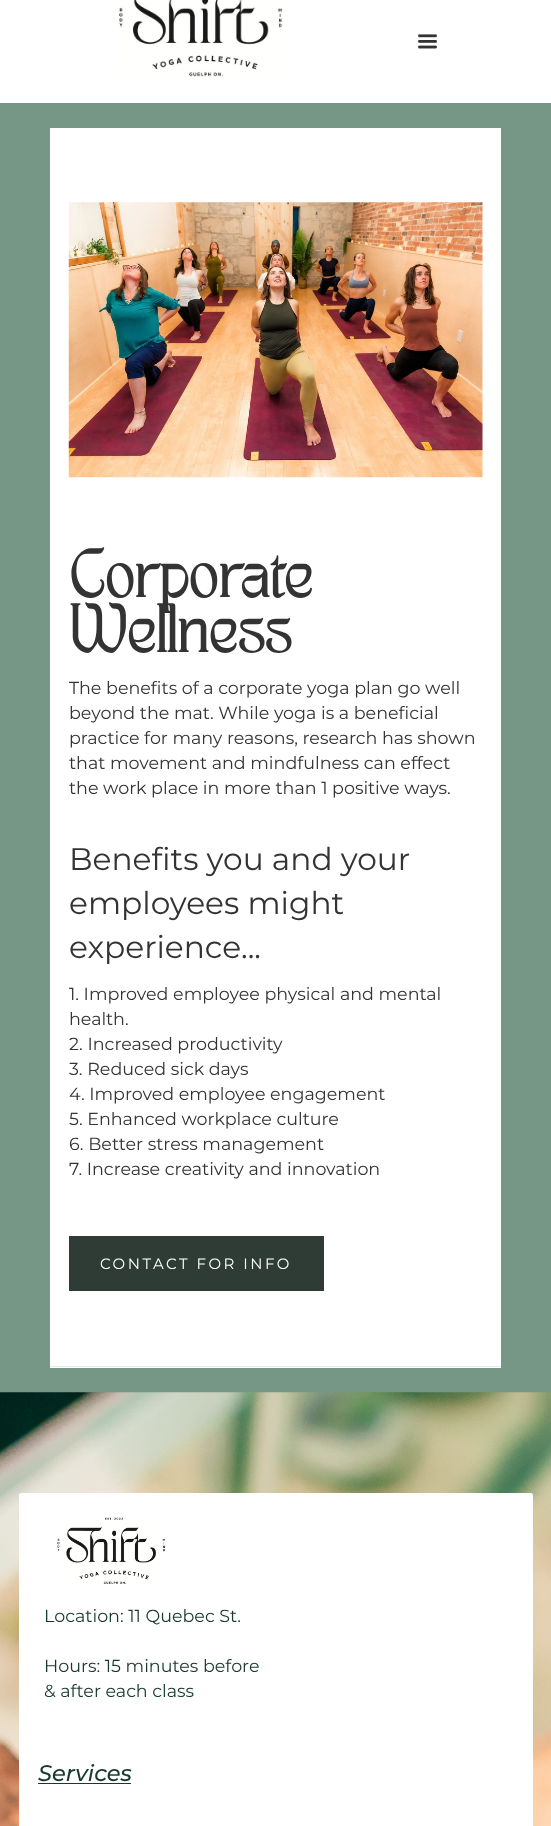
<svg xmlns="http://www.w3.org/2000/svg" width="551" height="1826" viewBox="0 0 551 1826">
  <rect width="100%" height="100%" fill="#769686"/>
  <rect x="0" y="0" width="551" height="103" fill="#ffffff"/>
  <image x="119" y="0" width="164" height="77" href="img1.png"/>
  <image x="418" y="34" width="19" height="15" href="img2.png"/>
  <rect x="50" y="128" width="451" height="1240" fill="#ffffff"/>
  <rect x="50" y="1366" width="451" height="1" fill="#e4ebf3"/>
  <image x="68" y="202" width="415" height="276" href="img3.png"/>
  <text x="69" y="597" font-family="'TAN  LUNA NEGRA'" font-size="47.5" font-weight="bold" fill="#333333">Corporate</text>
  <text x="69" y="652" font-family="'TAN  LUNA NEGRA'" font-size="47.5" font-weight="bold" fill="#333333">Wellness</text>
  <text x="69" y="694" font-family="Montserrat" font-size="17.5" fill="#333333">The benefits of a corporate yoga plan go well</text>
  <text x="69" y="719" font-family="Montserrat" font-size="17.5" fill="#333333">beyond the mat. While yoga is a beneficial</text>
  <text x="69" y="744" font-family="Montserrat" font-size="17.5" fill="#333333">practice for many reasons, research has shown</text>
  <text x="69" y="769" font-family="Montserrat" font-size="17.5" fill="#333333">that movement and mindfulness can effect</text>
  <text x="69" y="794" font-family="Montserrat" font-size="17.5" fill="#333333">the work place in more than 1 positive ways.</text>
  <text x="69" y="870" font-family="Montserrat" font-size="31.25" fill="#333333">Benefits you and your</text>
  <text x="69" y="914" font-family="Montserrat" font-size="31.25" fill="#333333">employees might</text>
  <text x="69" y="958" font-family="Montserrat" font-size="31.25" fill="#333333">experience...</text>
  <text x="69" y="1000" font-family="Montserrat" font-size="17.5" fill="#333333">1. Improved employee physical and mental</text>
  <text x="69" y="1025" font-family="Montserrat" font-size="17.5" fill="#333333">health.</text>
  <text x="69" y="1050" font-family="Montserrat" font-size="17.5" fill="#333333">2. Increased productivity</text>
  <text x="69" y="1075" font-family="Montserrat" font-size="17.5" fill="#333333">3. Reduced sick days</text>
  <text x="69" y="1100" font-family="Montserrat" font-size="17.5" fill="#333333">4. Improved employee engagement</text>
  <text x="69" y="1125" font-family="Montserrat" font-size="17.5" fill="#333333">5. Enhanced workplace culture</text>
  <text x="69" y="1150" font-family="Montserrat" font-size="17.5" fill="#333333">6. Better stress management</text>
  <text x="69" y="1175" font-family="Montserrat" font-size="17.5" fill="#333333">7. Increase creativity and innovation</text>
  <rect x="69" y="1236" width="255" height="55" fill="#2f3c36"/>
  <text x="100" y="1269" font-family="Montserrat" font-size="15" letter-spacing="2.5" fill="#ffffff">CONTACT FOR INFO</text>
  <image x="0" y="1392" width="551" height="434" href="img4.png"/>
  <rect x="19" y="1493" width="514" height="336" rx="2.5" fill="#ffffff"/>
  <image x="57" y="1517" width="109" height="67" href="img5.png"/>
  <text x="44" y="1622" font-family="Montserrat" font-size="17.5" fill="#183a2a">Location: 11 Quebec St.</text>
  <text x="44" y="1672" font-family="Montserrat" font-size="17.5" fill="#183a2a">Hours: 15 minutes before</text>
  <text x="44" y="1697" font-family="Montserrat" font-size="17.5" fill="#183a2a">&amp; after each class</text>
  <text x="38" y="1781" font-family="Montserrat" font-size="22.5" font-weight="500" font-style="italic" fill="#183a2a">Services</text>
  <rect x="38" y="1783" width="93" height="1" fill="#183a2a"/>
</svg>
